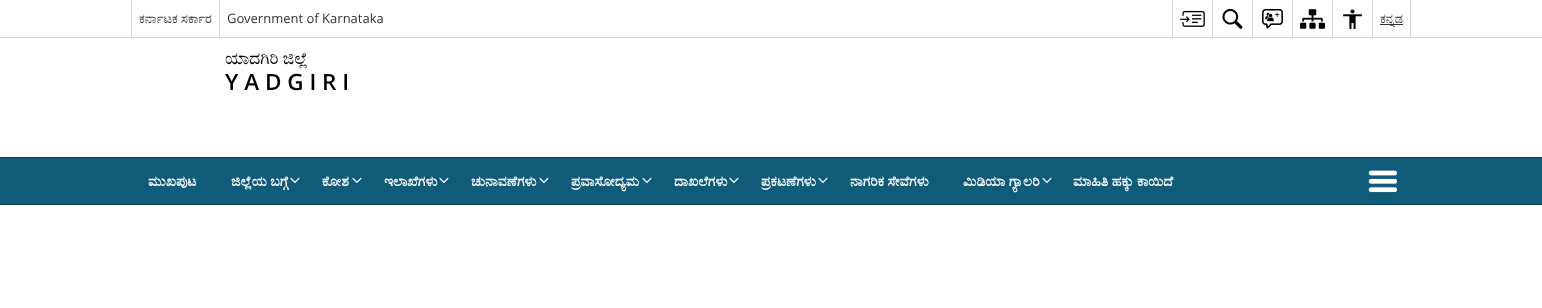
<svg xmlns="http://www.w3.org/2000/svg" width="1542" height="308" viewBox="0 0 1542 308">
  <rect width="100%" height="100%" fill="#ffffff"/>
  <rect x="0" y="37" width="1542" height="1" fill="#d8d8d8"/>
  <rect x="131" y="0" width="1" height="37" fill="#d8d8d8"/>
  <text x="139" y="23" font-family="FreeSerif" font-size="13" fill="#333333">ಕರ್ನಾಟಕ ಸರ್ಕಾರ</text>
  <rect x="219" y="0" width="1" height="37" fill="#d8d8d8"/>
  <text x="227" y="23" font-family="Open Sans" font-size="13" fill="#333333">Government of Karnataka</text>
  <rect x="1172" y="0" width="1" height="37" fill="#d8d8d8"/>
  <image x="1180" y="10" width="25" height="17" href="img1.png"/>
  <rect x="1212" y="0" width="1" height="37" fill="#d8d8d8"/>
  <image x="1222" y="9" width="21" height="20" href="img2.png"/>
  <rect x="1252" y="0" width="1" height="37" fill="#d8d8d8"/>
  <image x="1262" y="9" width="21" height="20" href="img3.png"/>
  <rect x="1292" y="0" width="1" height="37" fill="#d8d8d8"/>
  <image x="1300" y="9" width="25" height="20" href="img4.png"/>
  <rect x="1332" y="0" width="1" height="37" fill="#d8d8d8"/>
  <image x="1343" y="9" width="19" height="20" href="img5.png"/>
  <rect x="1410" y="0" width="1" height="37" fill="#d8d8d8"/>
  <rect x="1372" y="0" width="1" height="37" fill="#d8d8d8"/>
  <rect x="1380" y="24" width="23" height="1" fill="#333333"/>
  <text x="1380" y="23" font-family="FreeSerif" font-size="13" fill="#333333">ಕನ್ನಡ</text>
  <text x="225" y="64" font-family="FreeSerif" font-size="17" fill="#000000">ಯಾದಗಿರಿ ಜಿಲ್ಲೆ</text>
  <text x="225" y="90" font-family="Open Sans" font-size="22.5" font-weight="600" fill="#000000">Y A D G I R I</text>
  <rect x="0" y="158" width="1542" height="46" fill="#105b7a"/>
  <rect x="0" y="157" width="1542" height="1" fill="#0b4055"/>
  <rect x="0" y="204" width="1542" height="1" fill="#0b4055"/>
  <text x="148" y="186" font-family="FreeSerif" font-size="14" font-weight="bold" fill="#ffffff">ಮುಖಪುಟ</text>
  <text x="231" y="186" font-family="FreeSerif" font-size="14" font-weight="bold" fill="#ffffff">ಜಿಲ್ಲೆಯ ಬಗ್ಗೆ</text>
  <image x="290" y="177" width="10" height="7" href="img6.png"/>
  <text x="322" y="186" font-family="FreeSerif" font-size="14" font-weight="bold" fill="#ffffff">ಕೋಶ</text>
  <image x="352" y="177" width="10" height="7" href="img6.png"/>
  <text x="384" y="186" font-family="FreeSerif" font-size="14" font-weight="bold" fill="#ffffff">ಇಲಾಖೆಗಳು</text>
  <image x="439" y="177" width="10" height="7" href="img6.png"/>
  <text x="471" y="186" font-family="FreeSerif" font-size="14" font-weight="bold" fill="#ffffff">ಚುನಾವಣೆಗಳು</text>
  <image x="539" y="177" width="10" height="7" href="img6.png"/>
  <text x="571" y="186" font-family="FreeSerif" font-size="14" font-weight="bold" fill="#ffffff">ಪ್ರವಾಸೋದ್ಯಮ</text>
  <image x="642" y="177" width="10" height="7" href="img6.png"/>
  <text x="674" y="186" font-family="FreeSerif" font-size="14" font-weight="bold" fill="#ffffff">ದಾಖಲೆಗಳು</text>
  <image x="729" y="177" width="10" height="7" href="img6.png"/>
  <text x="761" y="186" font-family="FreeSerif" font-size="14" font-weight="bold" fill="#ffffff">ಪ್ರಕಟಣೆಗಳು</text>
  <image x="818" y="177" width="10" height="7" href="img6.png"/>
  <text x="850" y="186" font-family="FreeSerif" font-size="14" font-weight="bold" fill="#ffffff">ನಾಗರಿಕ ಸೇವೆಗಳು</text>
  <text x="963" y="186" font-family="FreeSerif" font-size="14" font-weight="bold" fill="#ffffff">ಮಿಡಿಯಾ ಗ್ಯಾಲರಿ</text>
  <image x="1042" y="177" width="10" height="7" href="img6.png"/>
  <text x="1073" y="186" font-family="FreeSerif" font-size="14" font-weight="bold" fill="#ffffff">ಮಾಹಿತಿ ಹಕ್ಕು ಕಾಯಿದೆ</text>
  <image x="1368" y="170" width="30" height="23" href="img7.png"/>
</svg>
